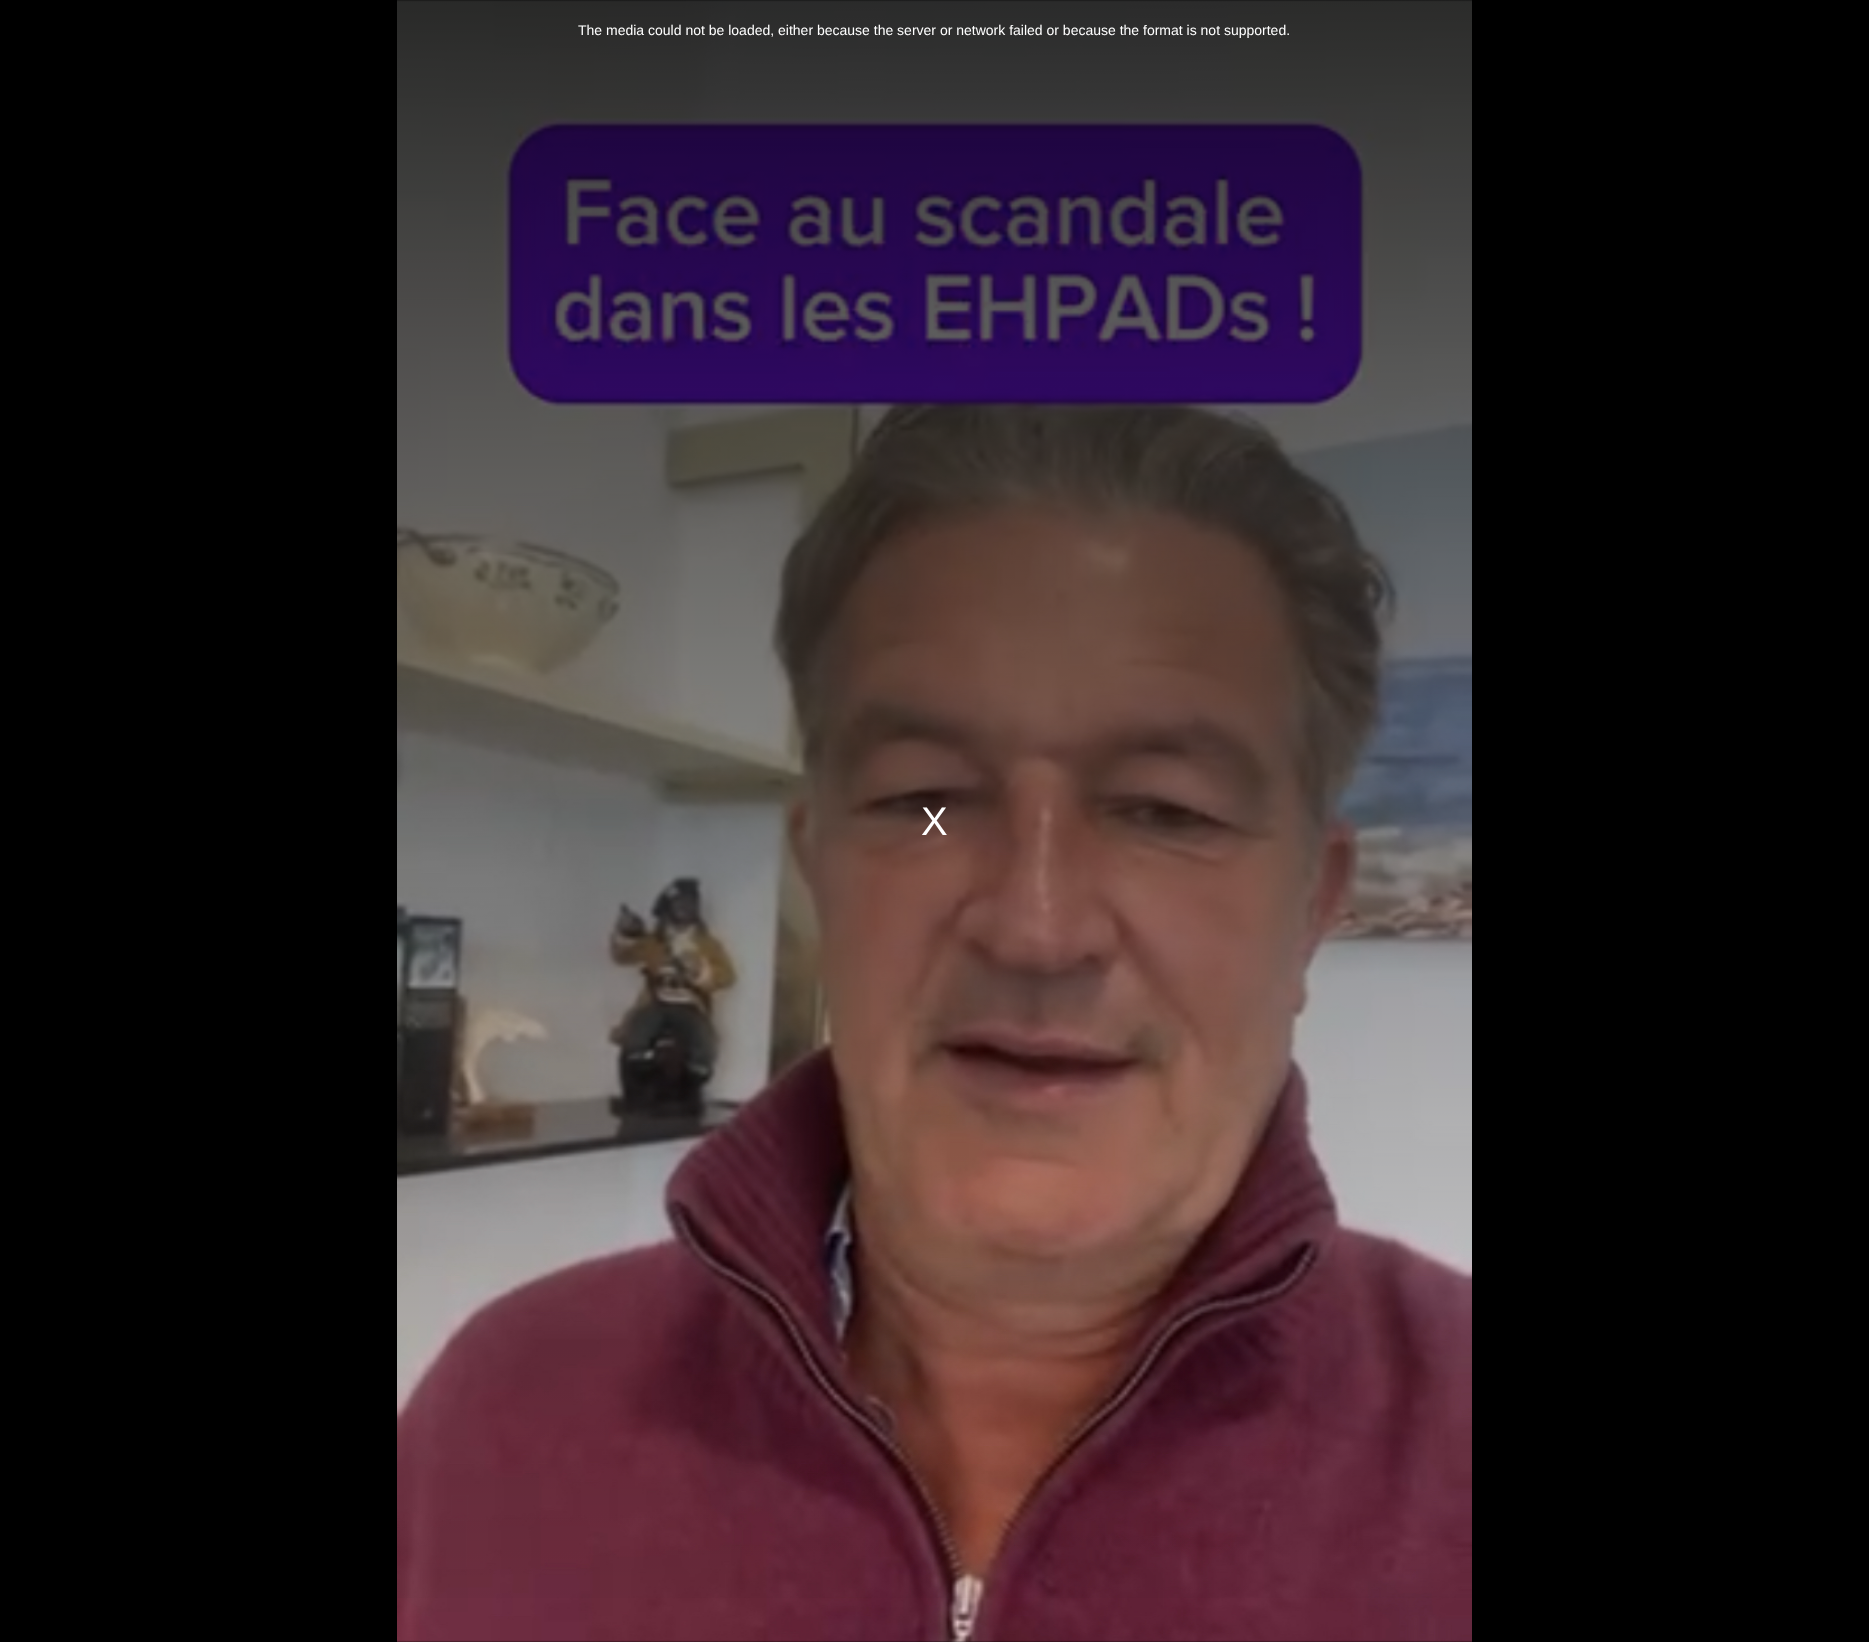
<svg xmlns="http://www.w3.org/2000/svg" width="1869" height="1642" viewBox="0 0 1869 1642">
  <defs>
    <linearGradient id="g1" gradientUnits="userSpaceOnUse" x1="934" y1="0" x2="935" y2="1642"><stop offset="0" stop-color="#000000" stop-opacity="0.8"/><stop offset="1" stop-color="#000000" stop-opacity="0"/></linearGradient>
  </defs>
  <rect width="100%" height="100%" fill="#000000"/>
  <image x="397" y="0" width="1075" height="1642" href="img1.png"/>
  <rect x="397" y="0" width="1075" height="1598" fill="url(#g1)"/>
  <text x="578" y="35" font-family="Liberation Sans" font-size="14" fill="#ffffff">The media could not be loaded, either because the server or network failed or because the format is not supported.</text>
  <text x="921" y="835" font-family="Liberation Sans" font-size="40" fill="#ffffff">X</text>
</svg>
